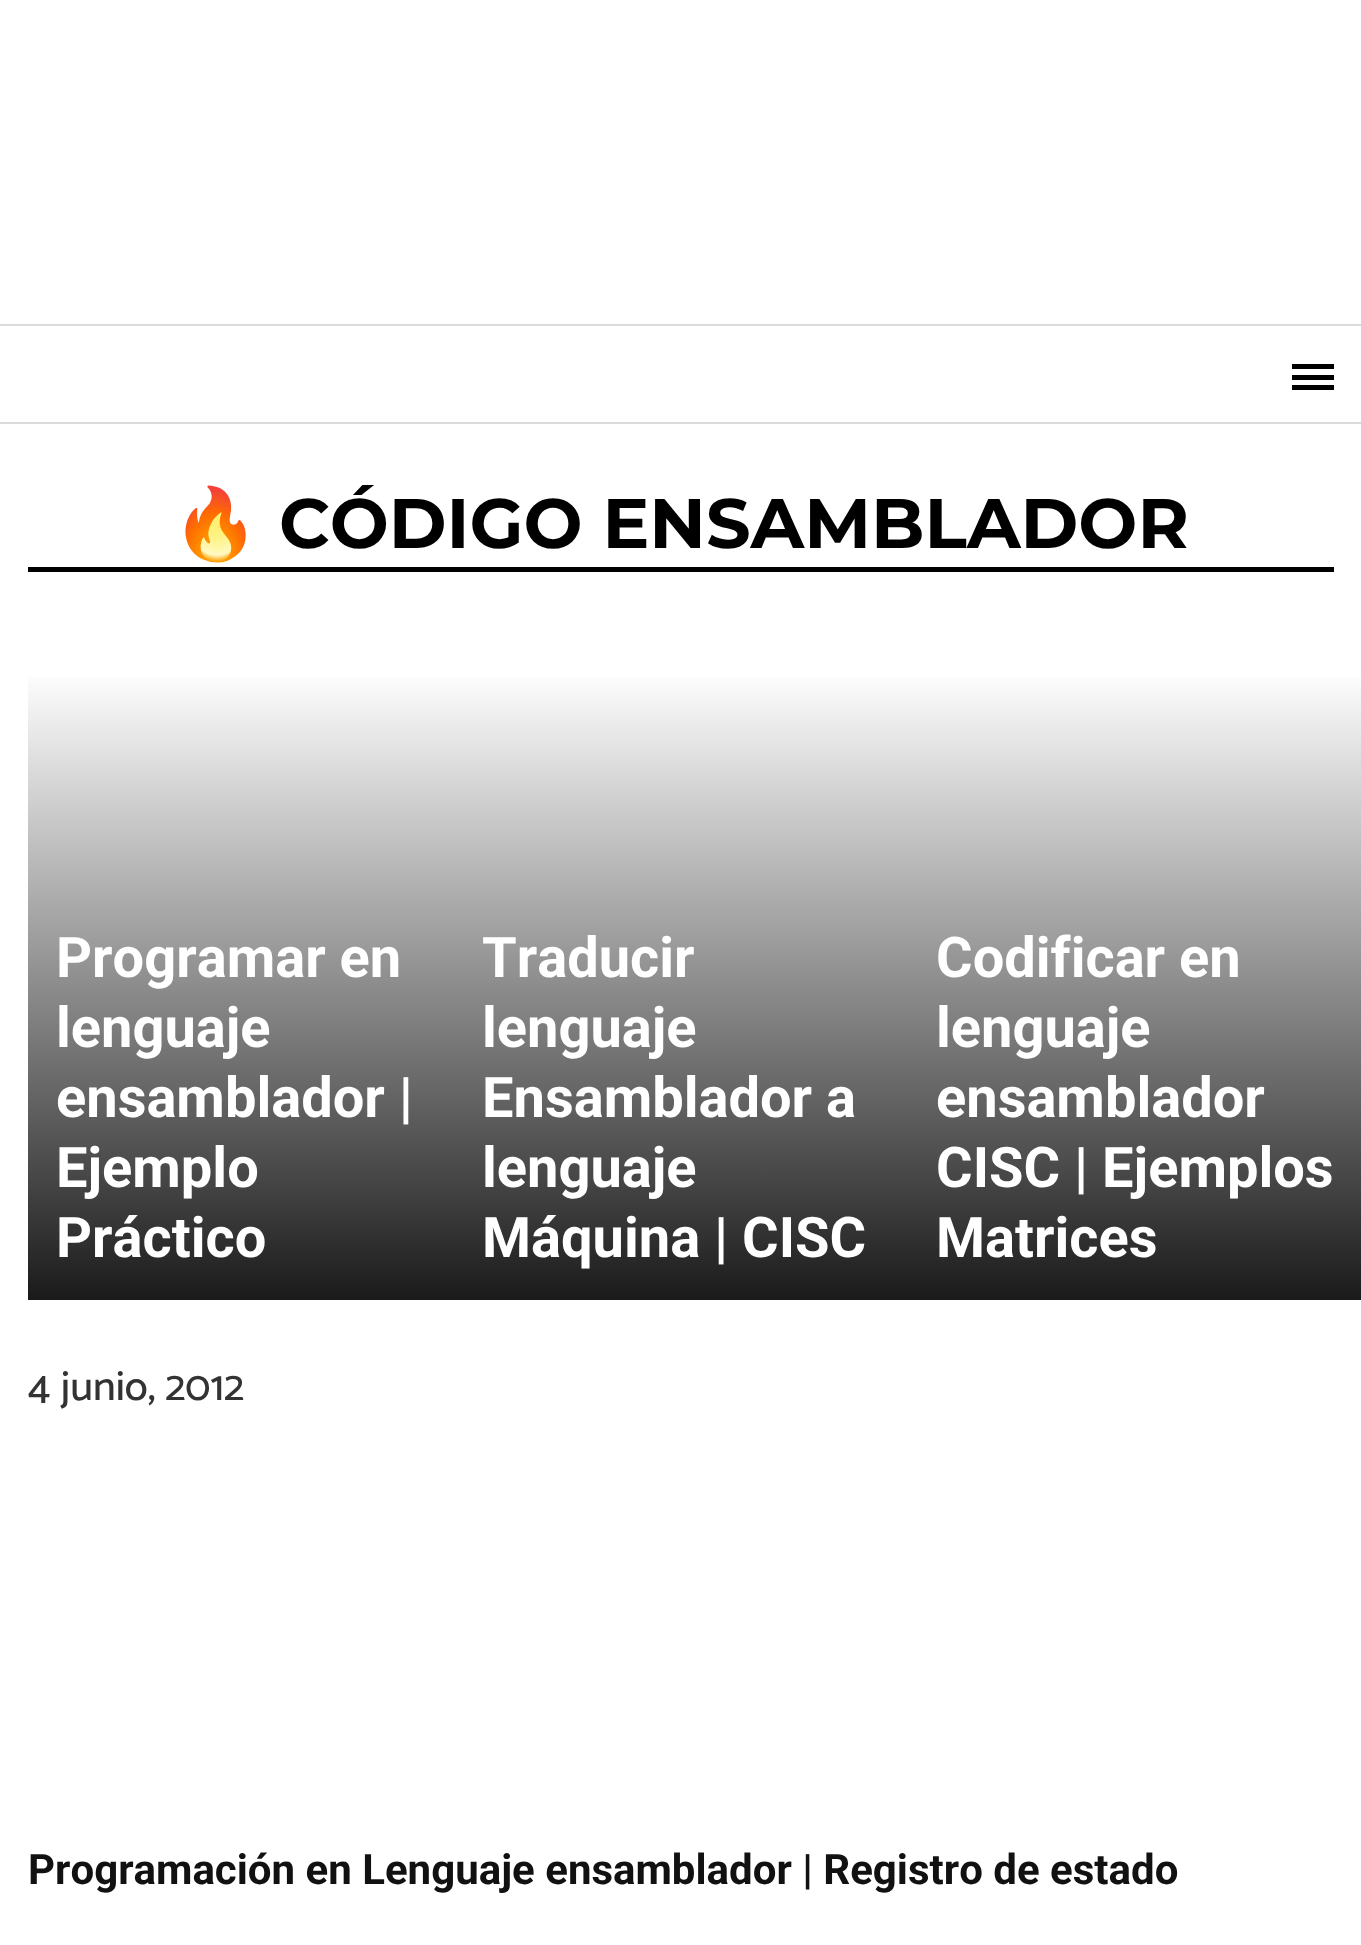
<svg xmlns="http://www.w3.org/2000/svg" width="1361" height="1945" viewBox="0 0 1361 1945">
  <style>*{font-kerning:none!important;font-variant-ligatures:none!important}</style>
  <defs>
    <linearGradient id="g1" gradientUnits="userSpaceOnUse" x1="241" y1="670" x2="241" y2="1300"><stop offset="0" stop-color="#ffffff"/><stop offset="1" stop-color="#1a1a1a"/></linearGradient>
    <linearGradient id="g2" gradientUnits="userSpaceOnUse" x1="681" y1="670" x2="681" y2="1300"><stop offset="0" stop-color="#ffffff"/><stop offset="1" stop-color="#1a1a1a"/></linearGradient>
    <linearGradient id="g3" gradientUnits="userSpaceOnUse" x1="1135" y1="670" x2="1135" y2="1300"><stop offset="0" stop-color="#ffffff"/><stop offset="1" stop-color="#1a1a1a"/></linearGradient>
  </defs>
  <rect width="100%" height="100%" fill="#ffffff"/>
  <rect x="0" y="324" width="1361" height="2" fill="#dbdbdb"/>
  <rect x="0" y="422" width="1361" height="2" fill="#dbdbdb"/>
  <rect x="1292" y="375" width="42" height="5" fill="#000000"/>
  <rect x="1292" y="364" width="42" height="5" fill="#000000"/>
  <rect x="1292" y="385" width="42" height="5" fill="#000000"/>
  <rect x="28" y="567" width="1306" height="5" fill="#000000"/>
  <text x="172" y="548" font-family="Noto Color Emoji" font-size="70" font-weight="bold" fill="#000000">🔥</text>
  <text x="279" y="548" font-family="Montserrat" font-size="70" font-weight="bold" fill="#000000">CÓDIGO ENSAMBLADOR</text>
  <rect x="28" y="677" width="425" height="623" fill="url(#g1)"/>
  <text x="56" y="977" font-family="Roboto" font-size="56" font-weight="bold" fill="#ffffff">Programar en</text>
  <text x="56" y="1047" font-family="Roboto" font-size="56" font-weight="bold" fill="#ffffff">lenguaje</text>
  <text x="56" y="1117" font-family="Roboto" font-size="56" font-weight="bold" fill="#ffffff">ensamblador |</text>
  <text x="56" y="1187" font-family="Roboto" font-size="56" font-weight="bold" fill="#ffffff">Ejemplo</text>
  <text x="56" y="1257" font-family="Roboto" font-size="56" font-weight="bold" fill="#ffffff">Práctico</text>
  <rect x="453" y="677" width="455" height="623" fill="url(#g2)"/>
  <text x="482" y="977" font-family="Roboto" font-size="56" font-weight="bold" fill="#ffffff">Traducir</text>
  <text x="482" y="1047" font-family="Roboto" font-size="56" font-weight="bold" fill="#ffffff">lenguaje</text>
  <text x="482" y="1117" font-family="Roboto" font-size="56" font-weight="bold" fill="#ffffff">Ensamblador a</text>
  <text x="482" y="1187" font-family="Roboto" font-size="56" font-weight="bold" fill="#ffffff">lenguaje</text>
  <text x="482" y="1257" font-family="Roboto" font-size="56" font-weight="bold" fill="#ffffff">Máquina | CISC</text>
  <rect x="908" y="677" width="453" height="623" fill="url(#g3)"/>
  <text x="936" y="977" font-family="Roboto" font-size="56" font-weight="bold" fill="#ffffff">Codificar en</text>
  <text x="936" y="1047" font-family="Roboto" font-size="56" font-weight="bold" fill="#ffffff">lenguaje</text>
  <text x="936" y="1117" font-family="Roboto" font-size="56" font-weight="bold" fill="#ffffff">ensamblador</text>
  <text x="936" y="1187" font-family="Roboto" font-size="56" font-weight="bold" fill="#ffffff">CISC | Ejemplos</text>
  <text x="936" y="1257" font-family="Roboto" font-size="56" font-weight="bold" fill="#ffffff">Matrices</text>
  <text x="28" y="1400" font-family="Catamaran" font-size="42" font-weight="100" fill="#333333">4 junio, 2012</text>
  <text x="28" y="1884" font-family="Roboto" font-size="42" font-weight="bold" fill="#111111">Programación en Lenguaje ensamblador | Registro de estado</text>
</svg>
